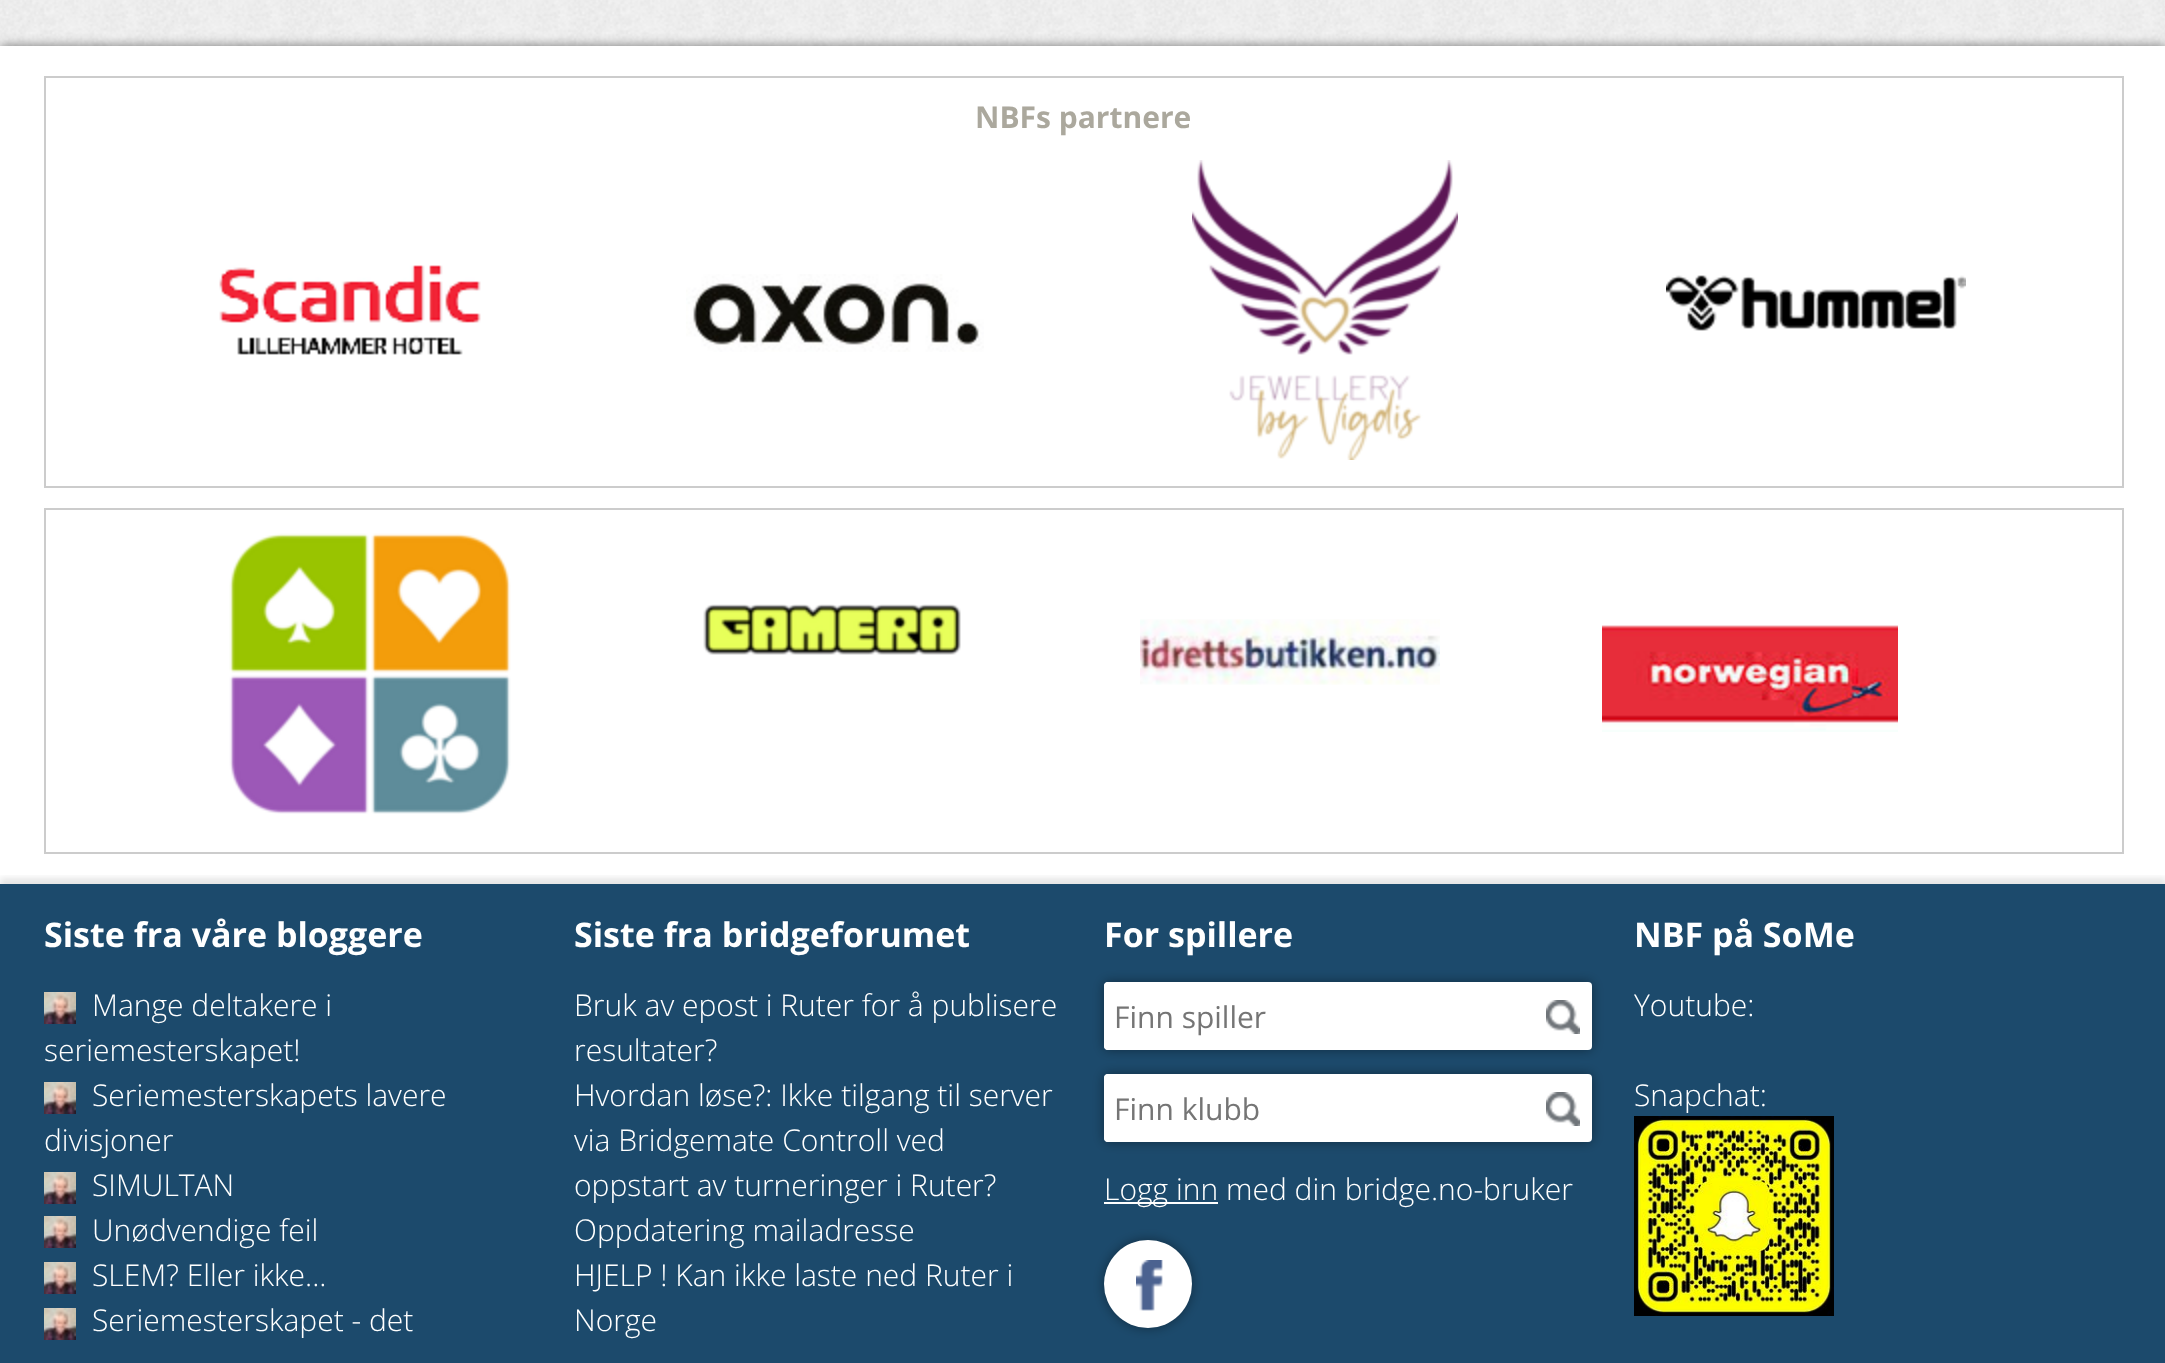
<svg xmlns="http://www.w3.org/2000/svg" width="2165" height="1363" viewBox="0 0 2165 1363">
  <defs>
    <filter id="blur1" x="-50%" y="-200%" width="200%" height="500%"><feGaussianBlur stdDeviation="6"/></filter>
    <clipPath id="clip1"><rect x="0" y="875" width="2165" height="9"/></clipPath>
    <filter id="blur2" x="-50%" y="-200%" width="200%" height="500%"><feGaussianBlur stdDeviation="3"/></filter>
  </defs>
  <rect width="100%" height="100%" fill="#ffffff"/>
  <image x="0" y="0" width="2165" height="46" href="img1.png"/>
  <rect x="0" y="46" width="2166" height="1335" fill="#000000" fill-opacity="0.5" filter="url(#blur1)"/>
  <rect x="0" y="884" width="2165" height="479" fill="#1c4a6c"/>
  <rect x="0" y="46" width="2165" height="838" fill="#ffffff"/>
  <rect x="45" y="77" width="2078" height="410" fill="none" stroke="#cccccc" stroke-width="2"/>
  <text x="975" y="128" font-family="Open Sans" font-size="30" font-weight="bold" fill="#aba89d">NBFs partnere</text>
  <image x="219" y="265" width="262" height="90" href="img2.png"/>
  <image x="686" y="274" width="298" height="78" href="img3.png"/>
  <image x="1192" y="160" width="266" height="300" href="img4.png"/>
  <image x="1666" y="275" width="300" height="56" href="img5.png"/>
  <rect x="45" y="509" width="2078" height="344" fill="none" stroke="#cccccc" stroke-width="2"/>
  <image x="229" y="533" width="282" height="281" href="img6.png"/>
  <image x="703" y="604" width="258" height="51" href="img7.png"/>
  <image x="1140" y="619" width="300" height="66" href="img8.png"/>
  <image x="1602" y="625" width="296" height="107" href="img9.png"/>
  <g clip-path="url(#clip1)">
    <rect x="0" y="878" width="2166" height="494" fill="#000000" fill-opacity="0.1" filter="url(#blur2)"/>
  </g>
  <text x="44" y="947" font-family="Open Sans" font-size="34" font-weight="bold" fill="#ffffff">Siste fra våre bloggere</text>
  <image x="44" y="992" width="32" height="32" href="img10.png"/>
  <text x="92" y="1016" font-family="Open Sans" font-size="30" font-weight="300" fill="#ffffff">Mange deltakere i</text>
  <text x="44" y="1061" font-family="Open Sans" font-size="30" font-weight="300" fill="#ffffff">seriemesterskapet!</text>
  <image x="44" y="1082" width="32" height="32" href="img10.png"/>
  <text x="92" y="1106" font-family="Open Sans" font-size="30" font-weight="300" fill="#ffffff">Seriemesterskapets lavere</text>
  <text x="44" y="1151" font-family="Open Sans" font-size="30" font-weight="300" fill="#ffffff">divisjoner</text>
  <image x="44" y="1172" width="32" height="32" href="img10.png"/>
  <text x="92" y="1196" font-family="Open Sans" font-size="30" font-weight="300" fill="#ffffff">SIMULTAN</text>
  <image x="44" y="1216" width="32" height="32" href="img10.png"/>
  <text x="92" y="1241" font-family="Open Sans" font-size="30" font-weight="300" fill="#ffffff">Unødvendige feil</text>
  <image x="44" y="1262" width="32" height="32" href="img10.png"/>
  <text x="92" y="1286" font-family="Open Sans" font-size="30" font-weight="300" fill="#ffffff">SLEM? Eller ikke...</text>
  <image x="44" y="1308" width="32" height="32" href="img10.png"/>
  <text x="92" y="1331" font-family="Open Sans" font-size="30" font-weight="300" fill="#ffffff">Seriemesterskapet - det</text>
  <text x="574" y="947" font-family="Open Sans" font-size="34" font-weight="bold" fill="#ffffff">Siste fra bridgeforumet</text>
  <text x="574" y="1016" font-family="Open Sans" font-size="30" font-weight="300" fill="#ffffff">Bruk av epost i Ruter for å publisere</text>
  <text x="574" y="1061" font-family="Open Sans" font-size="30" font-weight="300" fill="#ffffff">resultater?</text>
  <text x="574" y="1106" font-family="Open Sans" font-size="30" font-weight="300" fill="#ffffff">Hvordan løse?: Ikke tilgang til server</text>
  <text x="574" y="1151" font-family="Open Sans" font-size="30" font-weight="300" fill="#ffffff">via Bridgemate Controll ved</text>
  <text x="574" y="1196" font-family="Open Sans" font-size="30" font-weight="300" fill="#ffffff">oppstart av turneringer i Ruter?</text>
  <text x="574" y="1241" font-family="Open Sans" font-size="30" font-weight="300" fill="#ffffff">Oppdatering mailadresse</text>
  <text x="574" y="1286" font-family="Open Sans" font-size="30" font-weight="300" fill="#ffffff">HJELP ! Kan ikke laste ned Ruter i</text>
  <text x="574" y="1331" font-family="Open Sans" font-size="30" font-weight="300" fill="#ffffff">Norge</text>
  <text x="1104" y="947" font-family="Open Sans" font-size="34" font-weight="bold" fill="#ffffff">For spillere</text>
  <rect x="1104" y="982" width="488" height="68" rx="4" fill="#000000" fill-opacity="0.4" filter="url(#blur1)"/>
  <rect x="1104" y="982" width="488" height="68" rx="4" fill="#ffffff"/>
  <path d="M1108 982H1518V1050H1108C1106 1050 1104 1048 1104 1046V986C1104 984 1106 982 1108 982Z" fill="#ffffff"/>
  <text x="1114" y="1028" font-family="Open Sans" font-size="30" fill="#757575">Finn spiller</text>
  <image x="1546" y="1000" width="34" height="34" href="img11.png"/>
  <rect x="1104" y="1074" width="488" height="68" rx="4" fill="#000000" fill-opacity="0.4" filter="url(#blur1)"/>
  <rect x="1104" y="1074" width="488" height="68" rx="4" fill="#ffffff"/>
  <path d="M1108 1074H1518V1142H1108C1106 1142 1104 1140 1104 1138V1078C1104 1076 1106 1074 1108 1074Z" fill="#ffffff"/>
  <text x="1114" y="1120" font-family="Open Sans" font-size="30" fill="#757575">Finn klubb</text>
  <image x="1546" y="1092" width="34" height="34" href="img11.png"/>
  <rect x="1104" y="1202" width="114" height="2" fill="#ffffff"/>
  <text x="1104" y="1200" font-family="Open Sans" font-size="30" font-weight="300" fill="#ffffff">Logg inn med din bridge.no-bruker</text>
  <rect x="1104" y="1240" width="88" height="88" rx="44" fill="#000000" fill-opacity="0.4" filter="url(#blur1)"/>
  <circle cx="1148" cy="1284" r="44" fill="#ffffff"/>
  <image x="1136" y="1260" width="27" height="51" href="img12.png"/>
  <text x="1634" y="947" font-family="Open Sans" font-size="34" font-weight="bold" fill="#ffffff">NBF på SoMe</text>
  <text x="1634" y="1016" font-family="Open Sans" font-size="30" font-weight="300" fill="#ffffff">Youtube:</text>
  <text x="1634" y="1106" font-family="Open Sans" font-size="30" font-weight="300" fill="#ffffff">Snapchat:</text>
  <image x="1634" y="1116" width="200" height="200" href="img13.png"/>
</svg>
